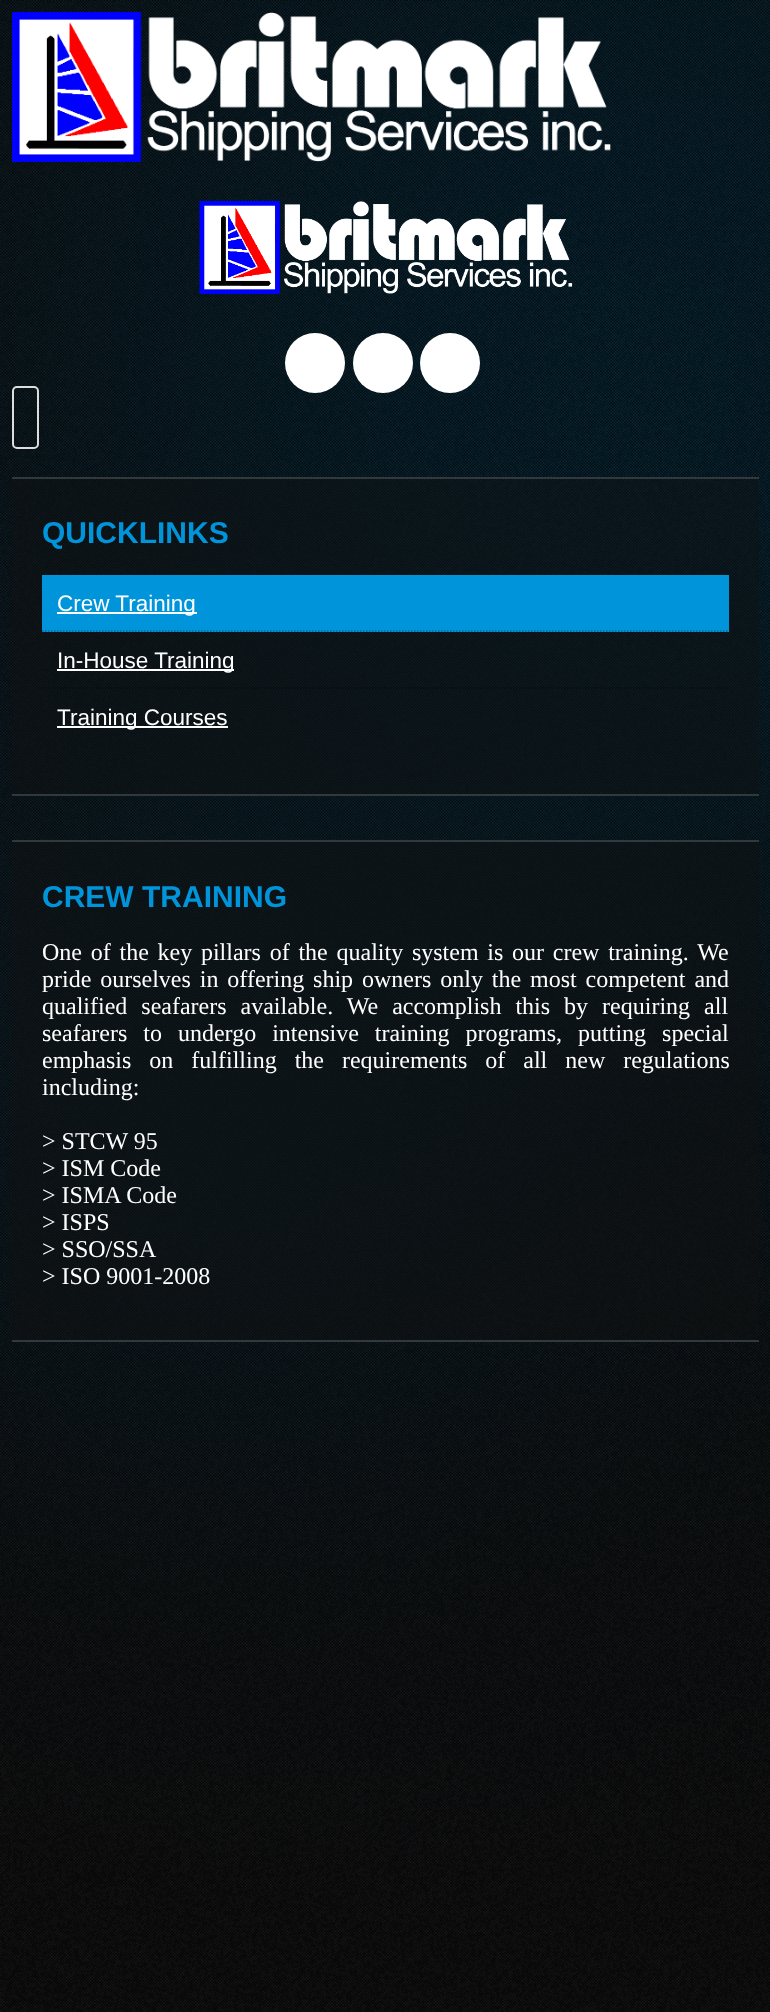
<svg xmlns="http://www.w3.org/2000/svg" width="770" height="2012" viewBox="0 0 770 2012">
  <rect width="100%" height="100%" fill="#ffffff"/>
  <image x="0" y="0" width="770" height="2012" href="img1.png"/>
  <image x="12" y="12" width="599" height="150" href="img2.png"/>
  <image x="199" y="201" width="374" height="93" href="img3.png"/>
  <circle cx="315" cy="363" r="30" fill="#ffffff"/>
  <circle cx="383" cy="363" r="30" fill="#ffffff"/>
  <circle cx="450" cy="363" r="30" fill="#ffffff"/>
  <rect x="13" y="387" width="25" height="61" rx="4" fill="none" stroke="#dddddd" stroke-width="2"/>
  <rect x="12" y="479" width="747" height="315" fill="#111112" fill-opacity="0.4"/>
  <rect x="12" y="477" width="747" height="2" fill="#32393c"/>
  <rect x="12" y="794" width="747" height="2" fill="#32393c"/>
  <text x="42" y="543" font-family="Liberation Sans" font-size="30" font-weight="bold" fill="#0094da">QUICKLINKS</text>
  <rect x="42" y="575" width="687" height="57" fill="#0094da"/>
  <path d="M42 631H729" fill="none" stroke="#006899" stroke-width="1.5" stroke-dasharray="1.5 1.5"/>
  <rect x="57" y="612" width="140" height="2" fill="#ffffff"/>
  <text x="57" y="611" font-family="Liberation Sans" font-size="22.5" fill="#ffffff">Crew Training</text>
  <path d="M42 688H729" fill="none" stroke="#000000" stroke-opacity="0.3" stroke-width="1.5" stroke-dasharray="1.5 1.5"/>
  <rect x="57" y="669" width="177" height="2" fill="#ffffff"/>
  <text x="57" y="668" font-family="Liberation Sans" font-size="22.5" fill="#ffffff">In-House Training</text>
  <rect x="57" y="726" width="171" height="2" fill="#ffffff"/>
  <text x="57" y="725" font-family="Liberation Sans" font-size="22.5" fill="#ffffff">Training Courses</text>
  <rect x="12" y="842" width="747" height="498" fill="#111112" fill-opacity="0.4"/>
  <rect x="12" y="840" width="747" height="2" fill="#32393c"/>
  <rect x="12" y="1340" width="747" height="2" fill="#32393c"/>
  <text x="42" y="907" font-family="Liberation Sans" font-size="30" font-weight="bold" fill="#0094da">CREW TRAINING</text>
  <text x="42" y="960" word-spacing="2.75" font-family="Liberation Serif" font-size="24" fill="#ffffff">One of the key pillars of the quality system is our crew training. We</text>
  <text x="42" y="987" word-spacing="2.9" font-family="Liberation Serif" font-size="24" fill="#ffffff">pride ourselves in offering ship owners only the most competent and</text>
  <text x="42" y="1014" word-spacing="8" font-family="Liberation Serif" font-size="24" fill="#ffffff">qualified seafarers available. We accomplish this by requiring all</text>
  <text x="42" y="1041" word-spacing="10" font-family="Liberation Serif" font-size="24" fill="#ffffff">seafarers to undergo intensive training programs, putting special</text>
  <text x="42" y="1068" word-spacing="12" font-family="Liberation Serif" font-size="24" fill="#ffffff">emphasis on fulfilling the requirements of all new regulations</text>
  <text x="42" y="1095" font-family="Liberation Serif" font-size="24" fill="#ffffff">including:</text>
  <text x="42" y="1149" font-family="Liberation Serif" font-size="24" fill="#ffffff">&gt; STCW 95</text>
  <text x="42" y="1176" font-family="Liberation Serif" font-size="24" fill="#ffffff">&gt; ISM Code</text>
  <text x="42" y="1203" font-family="Liberation Serif" font-size="24" fill="#ffffff">&gt; ISMA Code</text>
  <text x="42" y="1230" font-family="Liberation Serif" font-size="24" fill="#ffffff">&gt; ISPS</text>
  <text x="42" y="1257" font-family="Liberation Serif" font-size="24" fill="#ffffff">&gt; SSO/SSA</text>
  <text x="42" y="1284" font-family="Liberation Serif" font-size="24" fill="#ffffff">&gt; ISO 9001-2008</text>
</svg>
